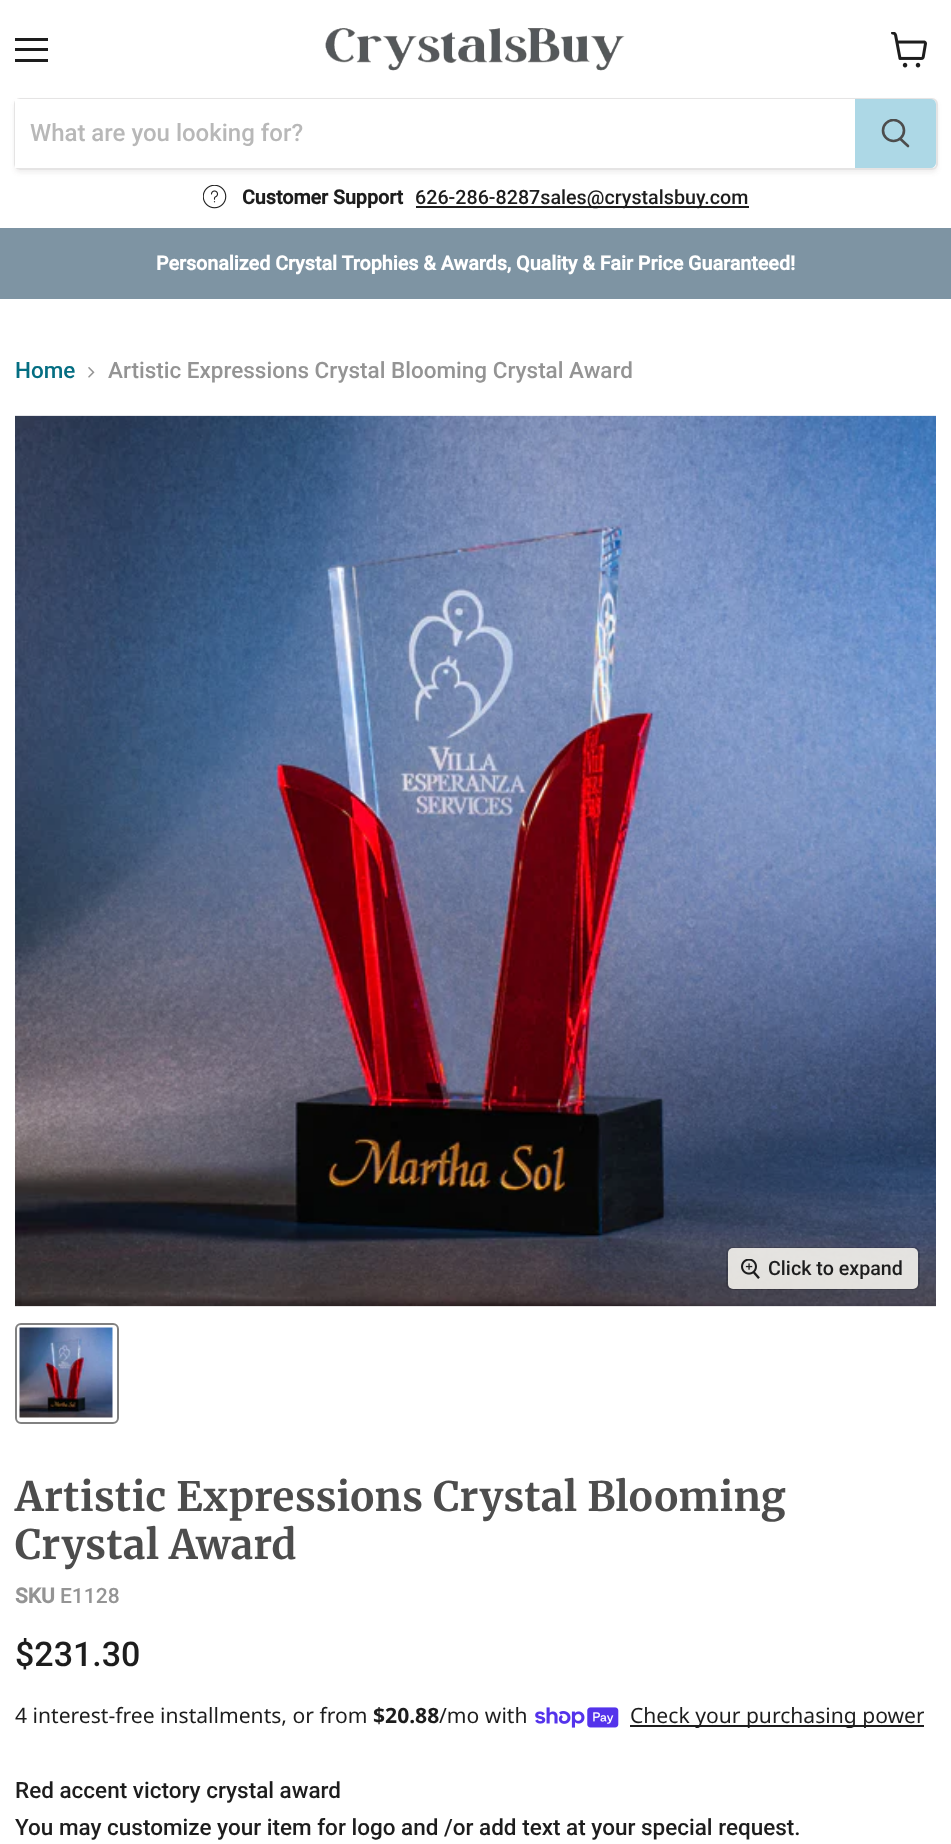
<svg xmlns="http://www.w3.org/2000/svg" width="951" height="1844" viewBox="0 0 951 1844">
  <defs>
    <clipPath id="clip1"><path d="M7 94H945V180H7ZM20 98H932C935.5 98 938 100.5 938 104V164C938 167.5 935.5 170 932 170H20C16.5 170 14 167.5 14 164V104C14 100.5 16.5 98 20 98Z" clip-rule="evenodd"/></clipPath>
    <filter id="blur1" x="-50%" y="-200%" width="200%" height="500%"><feGaussianBlur stdDeviation="2"/></filter>
    <clipPath id="clip2"><rect x="881" y="119" width="30" height="31"/></clipPath>
    <clipPath id="clip3"><rect x="630" y="1700" width="294" height="31"/></clipPath>
  </defs>
  <rect width="100%" height="100%" fill="#ffffff"/>
  <rect x="15" y="38" width="33" height="3" fill="#1d1d1d"/>
  <rect x="15" y="48" width="33" height="3" fill="#1d1d1d"/>
  <rect x="15" y="59" width="33" height="3" fill="#1d1d1d"/>
  <image x="891" y="32" width="36" height="36" href="img1.png"/>
  <image x="325" y="28" width="300" height="43" href="img2.png"/>
  <g clip-path="url(#clip1)">
    <rect x="14" y="101" width="924" height="72" rx="6" fill="#7b7a77" fill-opacity="0.11" filter="url(#blur1)"/>
  </g>
  <rect x="15" y="99" width="922" height="70" rx="5" fill="none" stroke="#7b7a77" stroke-opacity="0.2" stroke-width="2"/>
  <rect x="15" y="99" width="840" height="69" fill="#ffffff"/>
  <text x="30" y="141" font-family="Roboto" font-size="24" font-weight="500" fill="#b8b8b8">What are you looking for?</text>
  <path d="M856 100H931C933 100 935 102 935 104V163C935 165 933 167 931 167H856Z" fill="#add8e6" stroke="#add8e6" stroke-width="2"/>
  <path d="M908 146L900.5 139" fill="none" stroke="#4d4d4d" stroke-width="2.6" stroke-linecap="round"/>
  <g clip-path="url(#clip2)">
    <circle cx="893.5" cy="130.5" r="10.5" fill="none" stroke="#4d4d4d" stroke-width="2.6"/>
  </g>
  <image x="203" y="185" width="24" height="24" href="img3.png"/>
  <text x="242" y="204" font-family="Roboto" font-size="19.7" font-weight="bold" fill="#1d1d1d">Customer Support</text>
  <rect x="416" y="206" width="333" height="2" fill="#1d1d1d"/>
  <text x="415" y="204" font-family="Roboto" font-size="19.7" font-weight="500" fill="#1d1d1d">626-286-8287sales@crystalsbuy.com</text>
  <rect x="0" y="228" width="951" height="71" fill="#7e94a3"/>
  <text x="156" y="270" font-family="Roboto" font-size="19.7" font-weight="bold" fill="#ffffff">Personalized Crystal Trophies &amp; Awards, Quality &amp; Fair Price Guaranteed!</text>
  <text x="15" y="378" font-family="Roboto" font-size="22.5" font-weight="500" fill="#046e82">Home</text>
  <image x="88" y="367" width="7" height="11" href="img4.png"/>
  <text x="108" y="378" font-family="Roboto" font-size="22.5" font-weight="500" fill="#949494">Artistic Expressions Crystal Blooming Crystal Award</text>
  <image x="15" y="415" width="921" height="892" href="img5.png"/>
  <rect x="727" y="1248" width="192" height="41" rx="5" fill="none" stroke="#000000" stroke-opacity="0.15" stroke-width="2"/>
  <rect x="728" y="1248" width="190" height="41" rx="5" fill="#f5f3ed" fill-opacity="0.9"/>
  <image x="741" y="1259" width="19" height="20" href="img6.png"/>
  <text x="768" y="1275" font-family="Roboto" font-size="19.7" font-weight="500" fill="#1d1d1d">Click to expand</text>
  <rect x="16" y="1324" width="102" height="99" rx="5" fill="none" stroke="#818181" stroke-width="2"/>
  <image x="19" y="1327" width="94" height="91" href="img7.png"/>
  <text x="15" y="1511" font-family="Merriweather" font-size="40.5" font-weight="bold" letter-spacing="0.4" fill="#4d4d4d">Artistic Expressions Crystal Blooming</text>
  <text x="15" y="1559" font-family="Merriweather" font-size="40.5" font-weight="bold" letter-spacing="0.4" fill="#4d4d4d">Crystal Award</text>
  <text x="15" y="1603" font-family="Roboto" font-size="21" font-weight="bold" fill="#949494">SKU</text>
  <text x="60" y="1603" font-family="Roboto" font-size="21" font-weight="500" fill="#949494">E1128</text>
  <text x="15" y="1666" font-family="Roboto" font-size="34" font-weight="500" fill="#1d1d1d">$231.30</text>
  <text x="15" y="1723" font-family="Noto Sans" font-size="21.1" fill="#1d1d1d">4 interest-free installments, or from</text>
  <text x="373" y="1723" font-family="Noto Sans" font-size="21.1" font-weight="bold" fill="#1d1d1d">$20.88</text>
  <text x="439" y="1723" font-family="Noto Sans" font-size="21.1" fill="#1d1d1d">/mo with</text>
  <image x="535" y="1707" width="84" height="21" href="img8.png"/>
  <rect x="630" y="1725" width="294" height="2" fill="#1d1d1d"/>
  <g clip-path="url(#clip3)">
    <text x="630" y="1723" font-family="Noto Sans" font-size="21.1" fill="#1d1d1d">Check your purchasing power</text>
  </g>
  <text x="15" y="1798" font-family="Roboto" font-size="22.5" font-weight="500" fill="#1d1d1d">Red accent victory crystal award</text>
  <text x="15" y="1835" font-family="Roboto" font-size="22.5" font-weight="500" fill="#1d1d1d">You may customize your item for logo and /or add text at your special request.</text>
</svg>
